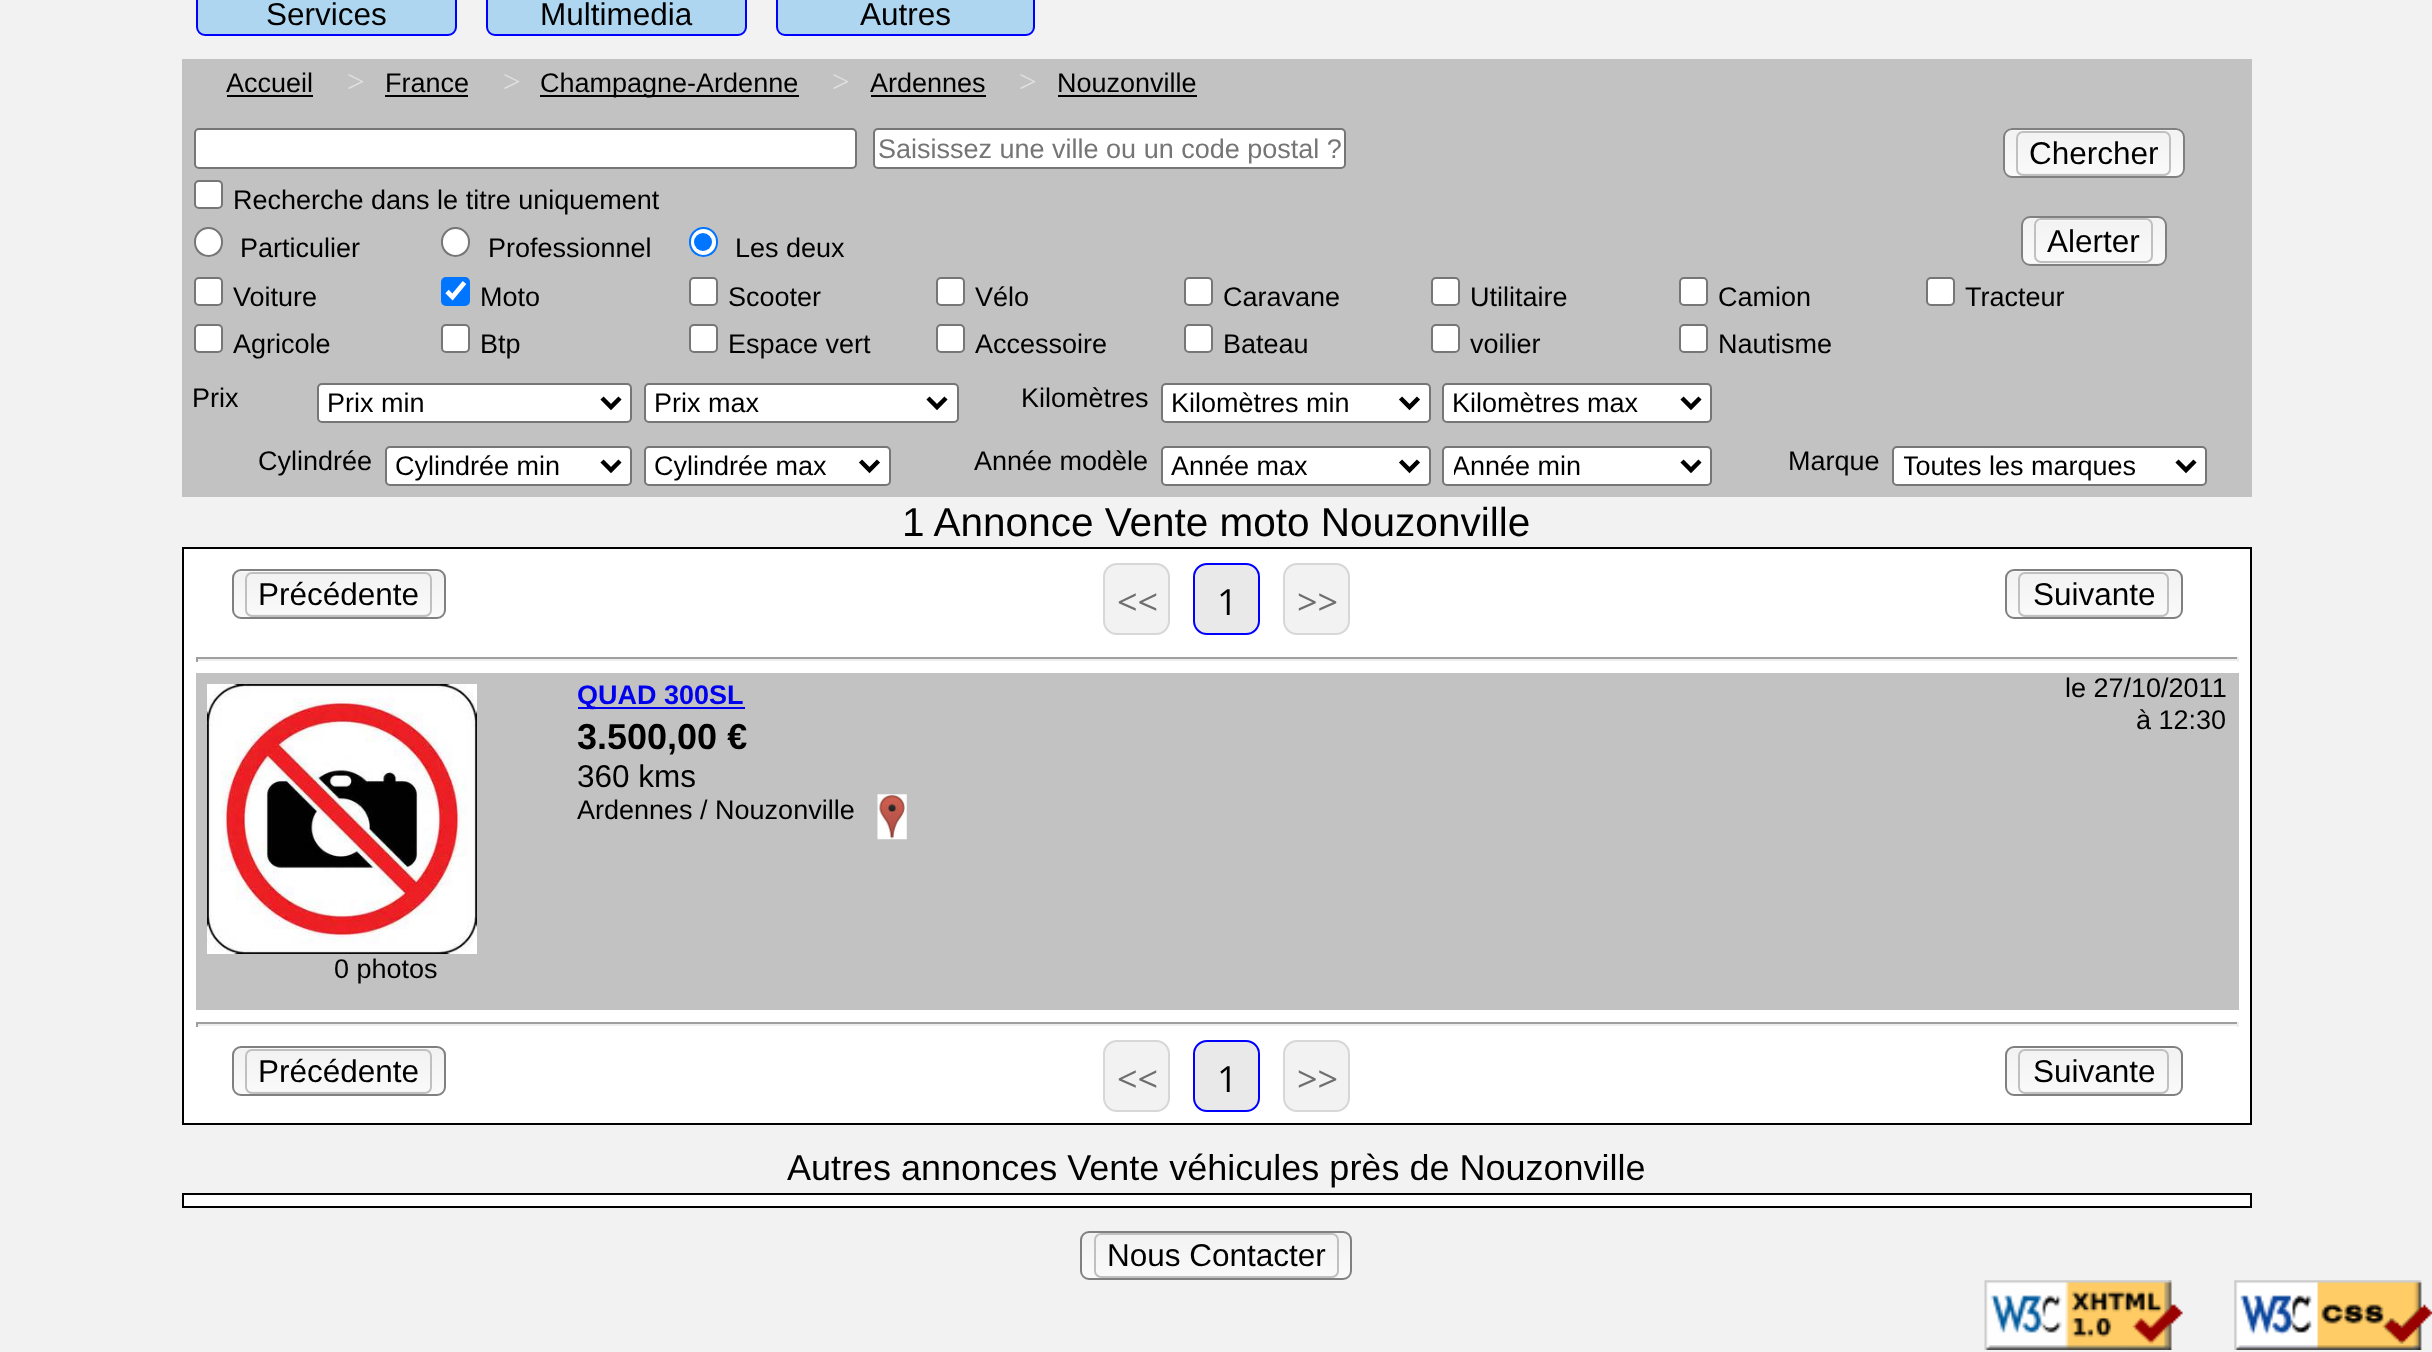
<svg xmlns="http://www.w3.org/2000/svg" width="2432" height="1352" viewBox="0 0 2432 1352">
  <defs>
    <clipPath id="clip1"><rect x="2003" y="128" width="182" height="50" rx="9"/></clipPath>
    <linearGradient id="g1" gradientUnits="userSpaceOnUse" x1="2094" y1="85" x2="2094" y2="131"><stop offset="0" stop-color="#f2f2f2"/><stop offset="1" stop-color="#fafafa"/></linearGradient>
    <linearGradient id="g2" gradientUnits="userSpaceOnUse" x1="2094" y1="130" x2="2094" y2="176"><stop offset="0" stop-color="#f2f2f2"/><stop offset="1" stop-color="#fafafa"/></linearGradient>
    <clipPath id="clip2"><rect x="2016" y="131" width="155" height="45" rx="7"/></clipPath>
    <linearGradient id="g3" gradientUnits="userSpaceOnUse" x1="2094" y1="173" x2="2094" y2="214"><stop offset="0" stop-color="#f2f2f2"/><stop offset="1" stop-color="#fafafa"/></linearGradient>
    <clipPath id="clip3"><rect x="2021" y="216" width="146" height="50" rx="9"/></clipPath>
    <linearGradient id="g4" gradientUnits="userSpaceOnUse" x1="2094" y1="218" x2="2094" y2="263"><stop offset="0" stop-color="#f2f2f2"/><stop offset="1" stop-color="#fafafa"/></linearGradient>
    <linearGradient id="g5" gradientUnits="userSpaceOnUse" x1="2094" y1="263" x2="2094" y2="308"><stop offset="0" stop-color="#f2f2f2"/><stop offset="1" stop-color="#fafafa"/></linearGradient>
    <clipPath id="clip4"><rect x="2034" y="218" width="119" height="45" rx="7"/></clipPath>
    <linearGradient id="g6" gradientUnits="userSpaceOnUse" x1="2094" y1="180" x2="2094" y2="221"><stop offset="0" stop-color="#f2f2f2"/><stop offset="1" stop-color="#fafafa"/></linearGradient>
    <clipPath id="clip5"><rect x="1454" y="448" width="220" height="36"/></clipPath>
    <clipPath id="clip6"><rect x="1904" y="448" width="265" height="36"/></clipPath>
    <clipPath id="clip7"><rect x="232" y="569" width="214" height="50" rx="9"/></clipPath>
    <linearGradient id="g7" gradientUnits="userSpaceOnUse" x1="339" y1="527" x2="339" y2="572"><stop offset="0" stop-color="#f2f2f2"/><stop offset="1" stop-color="#fafafa"/></linearGradient>
    <linearGradient id="g8" gradientUnits="userSpaceOnUse" x1="339" y1="572" x2="339" y2="617"><stop offset="0" stop-color="#f2f2f2"/><stop offset="1" stop-color="#fafafa"/></linearGradient>
    <clipPath id="clip8"><rect x="245" y="572" width="187" height="45" rx="7"/></clipPath>
    <linearGradient id="g9" gradientUnits="userSpaceOnUse" x1="339" y1="614" x2="339" y2="655"><stop offset="0" stop-color="#f2f2f2"/><stop offset="1" stop-color="#fafafa"/></linearGradient>
    <clipPath id="clip9"><rect x="2005" y="569" width="178" height="50" rx="9"/></clipPath>
    <linearGradient id="g10" gradientUnits="userSpaceOnUse" x1="2094" y1="527" x2="2094" y2="572"><stop offset="0" stop-color="#f2f2f2"/><stop offset="1" stop-color="#fafafa"/></linearGradient>
    <linearGradient id="g11" gradientUnits="userSpaceOnUse" x1="2094" y1="572" x2="2094" y2="617"><stop offset="0" stop-color="#f2f2f2"/><stop offset="1" stop-color="#fafafa"/></linearGradient>
    <clipPath id="clip10"><rect x="2018" y="572" width="151" height="45" rx="7"/></clipPath>
    <linearGradient id="g12" gradientUnits="userSpaceOnUse" x1="2094" y1="614" x2="2094" y2="655"><stop offset="0" stop-color="#f2f2f2"/><stop offset="1" stop-color="#fafafa"/></linearGradient>
    <clipPath id="clip11"><rect x="232" y="1046" width="214" height="50" rx="9"/></clipPath>
    <linearGradient id="g13" gradientUnits="userSpaceOnUse" x1="339" y1="1004" x2="339" y2="1049"><stop offset="0" stop-color="#f2f2f2"/><stop offset="1" stop-color="#fafafa"/></linearGradient>
    <linearGradient id="g14" gradientUnits="userSpaceOnUse" x1="339" y1="1049" x2="339" y2="1094"><stop offset="0" stop-color="#f2f2f2"/><stop offset="1" stop-color="#fafafa"/></linearGradient>
    <clipPath id="clip12"><rect x="245" y="1049" width="187" height="45" rx="7"/></clipPath>
    <linearGradient id="g15" gradientUnits="userSpaceOnUse" x1="339" y1="1091" x2="339" y2="1132"><stop offset="0" stop-color="#f2f2f2"/><stop offset="1" stop-color="#fafafa"/></linearGradient>
    <clipPath id="clip13"><rect x="2005" y="1046" width="178" height="50" rx="9"/></clipPath>
    <linearGradient id="g16" gradientUnits="userSpaceOnUse" x1="2094" y1="1004" x2="2094" y2="1049"><stop offset="0" stop-color="#f2f2f2"/><stop offset="1" stop-color="#fafafa"/></linearGradient>
    <linearGradient id="g17" gradientUnits="userSpaceOnUse" x1="2094" y1="1049" x2="2094" y2="1094"><stop offset="0" stop-color="#f2f2f2"/><stop offset="1" stop-color="#fafafa"/></linearGradient>
    <clipPath id="clip14"><rect x="2018" y="1049" width="151" height="45" rx="7"/></clipPath>
    <linearGradient id="g18" gradientUnits="userSpaceOnUse" x1="2094" y1="1091" x2="2094" y2="1132"><stop offset="0" stop-color="#f2f2f2"/><stop offset="1" stop-color="#fafafa"/></linearGradient>
    <clipPath id="clip15"><rect x="1080" y="1231" width="272" height="49" rx="9"/></clipPath>
    <linearGradient id="g19" gradientUnits="userSpaceOnUse" x1="1216" y1="1233" x2="1216" y2="1278"><stop offset="0" stop-color="#f2f2f2"/><stop offset="1" stop-color="#fafafa"/></linearGradient>
  </defs>
  <rect width="100%" height="100%" fill="#f2f2f2"/>
  <rect x="197" y="-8" width="259" height="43" rx="8" fill="#aed6f1" stroke="#0000ff" stroke-width="2"/>
  <text x="266" y="25" font-family="Liberation Sans" font-size="31.5" fill="#000000">Services</text>
  <rect x="487" y="-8" width="259" height="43" rx="8" fill="#aed6f1" stroke="#0000ff" stroke-width="2"/>
  <text x="540" y="25" font-family="Liberation Sans" font-size="31.5" fill="#000000">Multimedia</text>
  <rect x="777" y="-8" width="257" height="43" rx="8" fill="#aed6f1" stroke="#0000ff" stroke-width="2"/>
  <text x="860" y="25" font-family="Liberation Sans" font-size="31.5" fill="#000000">Autres</text>
  <rect x="182" y="59" width="2070" height="438" fill="#c2c2c2"/>
  <text x="226" y="92" font-family="Liberation Sans" font-size="27" fill="#000000">Accueil</text>
  <rect x="227" y="95" width="86" height="2" fill="#000000"/>
  <text x="347" y="92" font-family="Liberation Serif" font-size="31.5" fill="#e0e0e3">&gt;</text>
  <text x="385" y="92" font-family="Liberation Sans" font-size="27" fill="#000000">France</text>
  <rect x="385" y="95" width="83" height="2" fill="#000000"/>
  <text x="503" y="92" font-family="Liberation Serif" font-size="31.5" fill="#e0e0e3">&gt;</text>
  <rect x="540" y="95" width="259" height="2" fill="#000000"/>
  <text x="540" y="92" font-family="Liberation Sans" font-size="27" fill="#000000">Champagne-Ardenne</text>
  <text x="832" y="92" font-family="Liberation Serif" font-size="31.5" fill="#e0e0e3">&gt;</text>
  <text x="870" y="92" font-family="Liberation Sans" font-size="27" fill="#000000">Ardennes</text>
  <rect x="871" y="95" width="115" height="2" fill="#000000"/>
  <text x="1019" y="92" font-family="Liberation Serif" font-size="31.5" fill="#e0e0e3">&gt;</text>
  <text x="1057" y="92" font-family="Liberation Sans" font-size="27" fill="#000000">Nouzonville</text>
  <rect x="1058" y="95" width="139" height="2" fill="#000000"/>
  <rect x="874" y="129" width="471" height="39" rx="4" fill="#ffffff" stroke="#767676" stroke-width="2"/>
  <text x="878" y="158" font-family="Liberation Sans" font-size="27" fill="#757575">Saisissez une ville ou un code postal ?</text>
  <g clip-path="url(#clip1)">
    <rect x="2003" y="128" width="182" height="3" fill="url(#g1)"/>
    <rect x="2003" y="131" width="182" height="45" fill="url(#g2)"/>
  </g>
  <rect x="2004" y="129" width="180" height="48" rx="8" fill="none" stroke="#808080" stroke-width="2"/>
  <g clip-path="url(#clip2)">
    <rect x="2016" y="173" width="155" height="3" fill="url(#g3)"/>
  </g>
  <rect x="2017" y="132" width="153" height="43" rx="6" fill="none" stroke="#c0c0c0" stroke-width="2"/>
  <text x="2029" y="164" font-family="Liberation Sans" font-size="31.5" fill="#000000">Chercher</text>
  <rect x="195" y="129" width="661" height="39" rx="4" fill="#ffffff" stroke="#767676" stroke-width="2"/>
  <rect x="195" y="181" width="27" height="27" rx="4" fill="#ffffff" stroke="#767676" stroke-width="2"/>
  <text x="233" y="209" font-family="Liberation Sans" font-size="27" fill="#000000">Recherche dans le titre uniquement</text>
  <rect x="195" y="228" width="27" height="28" rx="13.5" fill="#ffffff" stroke="#767676" stroke-width="2"/>
  <text x="240" y="257" font-family="Liberation Sans" font-size="27" fill="#000000">Particulier</text>
  <rect x="442" y="228" width="27" height="28" rx="13.5" fill="#ffffff" stroke="#767676" stroke-width="2"/>
  <text x="488" y="257" font-family="Liberation Sans" font-size="27" fill="#000000">Professionnel</text>
  <rect x="690" y="228" width="27" height="28" rx="13.5" fill="#ffffff" stroke="#0075ff" stroke-width="2"/>
  <circle cx="703" cy="242" r="9" fill="#0075ff"/>
  <text x="735" y="257" font-family="Liberation Sans" font-size="27" fill="#000000">Les deux</text>
  <g clip-path="url(#clip3)">
    <rect x="2021" y="218" width="146" height="45" fill="url(#g4)"/>
    <rect x="2021" y="263" width="146" height="3" fill="url(#g5)"/>
  </g>
  <rect x="2022" y="217" width="144" height="48" rx="8" fill="none" stroke="#808080" stroke-width="2"/>
  <g clip-path="url(#clip4)">
    <rect x="2034" y="218" width="119" height="3" fill="url(#g6)"/>
  </g>
  <rect x="2035" y="219" width="117" height="43" rx="6" fill="none" stroke="#c0c0c0" stroke-width="2"/>
  <text x="2047" y="252" font-family="Liberation Sans" font-size="31.5" fill="#000000">Alerter</text>
  <rect x="195" y="278" width="27" height="27" rx="4" fill="#ffffff" stroke="#767676" stroke-width="2"/>
  <text x="233" y="306" font-family="Liberation Sans" font-size="27" fill="#000000">Voiture</text>
  <rect x="441" y="277" width="29" height="29" rx="5" fill="#0075ff"/>
  <path d="M447 291.5L452.5 297L464.5 282.5" fill="none" stroke="#ffffff" stroke-width="4.7"/>
  <text x="480" y="306" font-family="Liberation Sans" font-size="27" fill="#000000">Moto</text>
  <rect x="690" y="278" width="27" height="27" rx="4" fill="#ffffff" stroke="#767676" stroke-width="2"/>
  <text x="728" y="306" font-family="Liberation Sans" font-size="27" fill="#000000">Scooter</text>
  <rect x="937" y="278" width="27" height="27" rx="4" fill="#ffffff" stroke="#767676" stroke-width="2"/>
  <text x="975" y="306" font-family="Liberation Sans" font-size="27" fill="#000000">Vélo</text>
  <rect x="1185" y="278" width="27" height="27" rx="4" fill="#ffffff" stroke="#767676" stroke-width="2"/>
  <text x="1223" y="306" font-family="Liberation Sans" font-size="27" fill="#000000">Caravane</text>
  <rect x="1432" y="278" width="27" height="27" rx="4" fill="#ffffff" stroke="#767676" stroke-width="2"/>
  <text x="1470" y="306" font-family="Liberation Sans" font-size="27" fill="#000000">Utilitaire</text>
  <rect x="1680" y="278" width="27" height="27" rx="4" fill="#ffffff" stroke="#767676" stroke-width="2"/>
  <text x="1718" y="306" font-family="Liberation Sans" font-size="27" fill="#000000">Camion</text>
  <rect x="1927" y="278" width="27" height="27" rx="4" fill="#ffffff" stroke="#767676" stroke-width="2"/>
  <text x="1965" y="306" font-family="Liberation Sans" font-size="27" fill="#000000">Tracteur</text>
  <rect x="195" y="325" width="27" height="27" rx="4" fill="#ffffff" stroke="#767676" stroke-width="2"/>
  <text x="233" y="353" font-family="Liberation Sans" font-size="27" fill="#000000">Agricole</text>
  <rect x="442" y="325" width="27" height="27" rx="4" fill="#ffffff" stroke="#767676" stroke-width="2"/>
  <text x="480" y="353" font-family="Liberation Sans" font-size="27" fill="#000000">Btp</text>
  <rect x="690" y="325" width="27" height="27" rx="4" fill="#ffffff" stroke="#767676" stroke-width="2"/>
  <text x="728" y="353" font-family="Liberation Sans" font-size="27" fill="#000000">Espace vert</text>
  <rect x="937" y="325" width="27" height="27" rx="4" fill="#ffffff" stroke="#767676" stroke-width="2"/>
  <text x="975" y="353" font-family="Liberation Sans" font-size="27" fill="#000000">Accessoire</text>
  <rect x="1185" y="325" width="27" height="27" rx="4" fill="#ffffff" stroke="#767676" stroke-width="2"/>
  <text x="1223" y="353" font-family="Liberation Sans" font-size="27" fill="#000000">Bateau</text>
  <rect x="1432" y="325" width="27" height="27" rx="4" fill="#ffffff" stroke="#767676" stroke-width="2"/>
  <text x="1470" y="353" font-family="Liberation Sans" font-size="27" fill="#000000">voilier</text>
  <rect x="1680" y="325" width="27" height="27" rx="4" fill="#ffffff" stroke="#767676" stroke-width="2"/>
  <text x="1718" y="353" font-family="Liberation Sans" font-size="27" fill="#000000">Nautisme</text>
  <text x="192" y="407" font-family="Liberation Sans" font-size="27" fill="#000000">Prix</text>
  <rect x="318" y="384" width="313" height="38" rx="4" fill="#ffffff" stroke="#767676" stroke-width="2"/>
  <path d="M602 398L611 407L620 398" fill="none" stroke="#000000" stroke-width="4.5"/>
  <text x="327" y="412" font-family="Liberation Sans" font-size="27" fill="#000000">Prix min</text>
  <rect x="645" y="384" width="313" height="38" rx="4" fill="#ffffff" stroke="#767676" stroke-width="2"/>
  <path d="M928 398L937 407L946 398" fill="none" stroke="#000000" stroke-width="4.5"/>
  <text x="654" y="412" font-family="Liberation Sans" font-size="27" fill="#000000">Prix max</text>
  <text x="1021" y="407" font-family="Liberation Sans" font-size="27" fill="#000000">Kilomètres</text>
  <rect x="1162" y="384" width="268" height="38" rx="4" fill="#ffffff" stroke="#767676" stroke-width="2"/>
  <path d="M1400.5 398L1409.5 407L1418.5 398" fill="none" stroke="#000000" stroke-width="4.5"/>
  <text x="1171" y="412" font-family="Liberation Sans" font-size="27" fill="#000000">Kilomètres min</text>
  <rect x="1443" y="384" width="268" height="38" rx="4" fill="#ffffff" stroke="#767676" stroke-width="2"/>
  <path d="M1682 398L1691 407L1700 398" fill="none" stroke="#000000" stroke-width="4.5"/>
  <text x="1452" y="412" font-family="Liberation Sans" font-size="27" fill="#000000">Kilomètres max</text>
  <text x="258" y="470" font-family="Liberation Sans" font-size="27" fill="#000000">Cylindrée</text>
  <rect x="386" y="447" width="245" height="38" rx="4" fill="#ffffff" stroke="#767676" stroke-width="2"/>
  <path d="M602 461L611 470L620 461" fill="none" stroke="#000000" stroke-width="4.5"/>
  <text x="395" y="475" font-family="Liberation Sans" font-size="27" fill="#000000">Cylindrée min</text>
  <rect x="645" y="447" width="245" height="38" rx="4" fill="#ffffff" stroke="#767676" stroke-width="2"/>
  <path d="M860.5 461L869.5 470L878.5 461" fill="none" stroke="#000000" stroke-width="4.5"/>
  <text x="654" y="475" font-family="Liberation Sans" font-size="27" fill="#000000">Cylindrée max</text>
  <text x="974" y="470" font-family="Liberation Sans" font-size="27" fill="#000000">Année modèle</text>
  <rect x="1162" y="447" width="268" height="38" rx="4" fill="#ffffff" stroke="#767676" stroke-width="2"/>
  <path d="M1400.5 461L1409.5 470L1418.5 461" fill="none" stroke="#000000" stroke-width="4.5"/>
  <text x="1171" y="475" font-family="Liberation Sans" font-size="27" fill="#000000">Année max</text>
  <rect x="1443" y="447" width="268" height="38" rx="4" fill="#ffffff" stroke="#767676" stroke-width="2"/>
  <path d="M1682 461L1691 470L1700 461" fill="none" stroke="#000000" stroke-width="4.5"/>
  <g clip-path="url(#clip5)">
    <text x="1452" y="475" font-family="Liberation Sans" font-size="27" fill="#000000">Année min</text>
  </g>
  <text x="1788" y="470" font-family="Liberation Sans" font-size="27" fill="#000000">Marque</text>
  <rect x="1893" y="447" width="313" height="38" rx="4" fill="#ffffff" stroke="#767676" stroke-width="2"/>
  <path d="M2177 461L2186 470L2195 461" fill="none" stroke="#000000" stroke-width="4.5"/>
  <g clip-path="url(#clip6)">
    <text x="1902" y="475" font-family="Liberation Sans" font-size="27" fill="#000000">Toutes les marques</text>
  </g>
  <text x="902" y="536" font-family="Liberation Sans" font-size="40.5" fill="#000000">1 Annonce Vente moto Nouzonville</text>
  <rect x="183" y="548" width="2068" height="576" fill="#ffffff" stroke="#000000" stroke-width="2"/>
  <g clip-path="url(#clip7)">
    <rect x="232" y="569" width="214" height="3" fill="url(#g7)"/>
    <rect x="232" y="572" width="214" height="45" fill="url(#g8)"/>
  </g>
  <rect x="233" y="570" width="212" height="48" rx="8" fill="none" stroke="#808080" stroke-width="2"/>
  <g clip-path="url(#clip8)">
    <rect x="245" y="614" width="187" height="3" fill="url(#g9)"/>
  </g>
  <rect x="246" y="573" width="185" height="43" rx="6" fill="none" stroke="#c0c0c0" stroke-width="2"/>
  <text x="258" y="605" font-family="Liberation Sans" font-size="31.5" fill="#000000">Précédente</text>
  <rect x="1104" y="564" width="65" height="70" rx="13" fill="#f2f2f2" stroke="#d7d7d7" stroke-width="2"/>
  <text x="1117" y="615" font-family="Open Sans" font-size="36" fill="#6e6e6e">&lt;&lt;</text>
  <rect x="1194" y="564" width="65" height="70" rx="13" fill="#e9e9e9" stroke="#0000ff" stroke-width="2"/>
  <text x="1217" y="615" font-family="Open Sans" font-size="36" fill="#000000">1</text>
  <rect x="1284" y="564" width="65" height="70" rx="13" fill="#f2f2f2" stroke="#d7d7d7" stroke-width="2"/>
  <text x="1297" y="615" font-family="Open Sans" font-size="36" fill="#6e6e6e">&gt;&gt;</text>
  <g clip-path="url(#clip9)">
    <rect x="2005" y="569" width="178" height="3" fill="url(#g10)"/>
    <rect x="2005" y="572" width="178" height="45" fill="url(#g11)"/>
  </g>
  <rect x="2006" y="570" width="176" height="48" rx="8" fill="none" stroke="#808080" stroke-width="2"/>
  <g clip-path="url(#clip10)">
    <rect x="2018" y="614" width="151" height="3" fill="url(#g12)"/>
  </g>
  <rect x="2019" y="573" width="149" height="43" rx="6" fill="none" stroke="#c0c0c0" stroke-width="2"/>
  <text x="2033" y="605" font-family="Liberation Sans" font-size="31.5" fill="#000000">Suivante</text>
  <rect x="196" y="657" width="2043" height="2" fill="#9f9f9f"/>
  <rect x="2237" y="657" width="2" height="5" fill="#eeeeee"/>
  <rect x="196" y="659" width="2043" height="2" fill="#eeeeee"/>
  <rect x="196" y="657" width="2" height="5" fill="#9f9f9f"/>
  <rect x="196" y="673" width="2043" height="337" fill="#c2c2c2"/>
  <rect x="578" y="707" width="167" height="2" fill="#0000ee"/>
  <text x="577" y="704" font-family="Liberation Sans" font-size="27" font-weight="bold" fill="#0000ee">QUAD 300SL</text>
  <text x="577" y="749" font-family="Liberation Sans" font-size="36" font-weight="bold" fill="#000000">3.500,00 €</text>
  <text x="577" y="787" font-family="Liberation Sans" font-size="31.5" fill="#000000">360 kms</text>
  <text x="577" y="819" font-family="Liberation Sans" font-size="27" fill="#000000">Ardennes / Nouzonville</text>
  <image x="877" y="794" width="30" height="46" href="img1.png"/>
  <text x="2065" y="697" font-family="Liberation Sans" font-size="27" fill="#000000">le 27/10/2011</text>
  <text x="2136" y="729" font-family="Liberation Sans" font-size="27" fill="#000000">à 12:30</text>
  <image x="207" y="684" width="270" height="270" href="img2.png"/>
  <text x="334" y="978" font-family="Liberation Sans" font-size="27" fill="#000000">0 photos</text>
  <rect x="196" y="1022" width="2043" height="2" fill="#9f9f9f"/>
  <rect x="2237" y="1022" width="2" height="5" fill="#eeeeee"/>
  <rect x="196" y="1024" width="2043" height="2" fill="#eeeeee"/>
  <rect x="196" y="1022" width="2" height="5" fill="#9f9f9f"/>
  <g clip-path="url(#clip11)">
    <rect x="232" y="1046" width="214" height="3" fill="url(#g13)"/>
    <rect x="232" y="1049" width="214" height="45" fill="url(#g14)"/>
  </g>
  <rect x="233" y="1047" width="212" height="48" rx="8" fill="none" stroke="#808080" stroke-width="2"/>
  <g clip-path="url(#clip12)">
    <rect x="245" y="1091" width="187" height="3" fill="url(#g15)"/>
  </g>
  <rect x="246" y="1050" width="185" height="43" rx="6" fill="none" stroke="#c0c0c0" stroke-width="2"/>
  <text x="258" y="1082" font-family="Liberation Sans" font-size="31.5" fill="#000000">Précédente</text>
  <rect x="1104" y="1041" width="65" height="70" rx="13" fill="#f2f2f2" stroke="#d7d7d7" stroke-width="2"/>
  <text x="1117" y="1092" font-family="Open Sans" font-size="36" fill="#6e6e6e">&lt;&lt;</text>
  <rect x="1194" y="1041" width="65" height="70" rx="13" fill="#e9e9e9" stroke="#0000ff" stroke-width="2"/>
  <text x="1217" y="1092" font-family="Open Sans" font-size="36" fill="#000000">1</text>
  <rect x="1284" y="1041" width="65" height="70" rx="13" fill="#f2f2f2" stroke="#d7d7d7" stroke-width="2"/>
  <text x="1297" y="1092" font-family="Open Sans" font-size="36" fill="#6e6e6e">&gt;&gt;</text>
  <g clip-path="url(#clip13)">
    <rect x="2005" y="1046" width="178" height="3" fill="url(#g16)"/>
    <rect x="2005" y="1049" width="178" height="45" fill="url(#g17)"/>
  </g>
  <rect x="2006" y="1047" width="176" height="48" rx="8" fill="none" stroke="#808080" stroke-width="2"/>
  <g clip-path="url(#clip14)">
    <rect x="2018" y="1091" width="151" height="3" fill="url(#g18)"/>
  </g>
  <rect x="2019" y="1050" width="149" height="43" rx="6" fill="none" stroke="#c0c0c0" stroke-width="2"/>
  <text x="2033" y="1082" font-family="Liberation Sans" font-size="31.5" fill="#000000">Suivante</text>
  <text x="787" y="1180" font-family="Liberation Sans" font-size="36" fill="#000000">Autres annonces Vente véhicules près de Nouzonville</text>
  <rect x="183" y="1194" width="2068" height="13" fill="#ffffff" stroke="#000000" stroke-width="2"/>
  <g clip-path="url(#clip15)">
    <rect x="1080" y="1233" width="272" height="45" fill="url(#g19)"/>
  </g>
  <rect x="1081" y="1232" width="270" height="47" rx="8" fill="none" stroke="#808080" stroke-width="2"/>
  <rect x="1095" y="1234" width="243" height="43" rx="6" fill="none" stroke="#c0c0c0" stroke-width="2"/>
  <text x="1107" y="1266" font-family="Liberation Sans" font-size="31.5" fill="#000000">Nous Contacter</text>
  <image x="1984" y="1280" width="199" height="70" href="img3.png"/>
  <image x="2234" y="1280" width="198" height="70" href="img4.png"/>
</svg>
